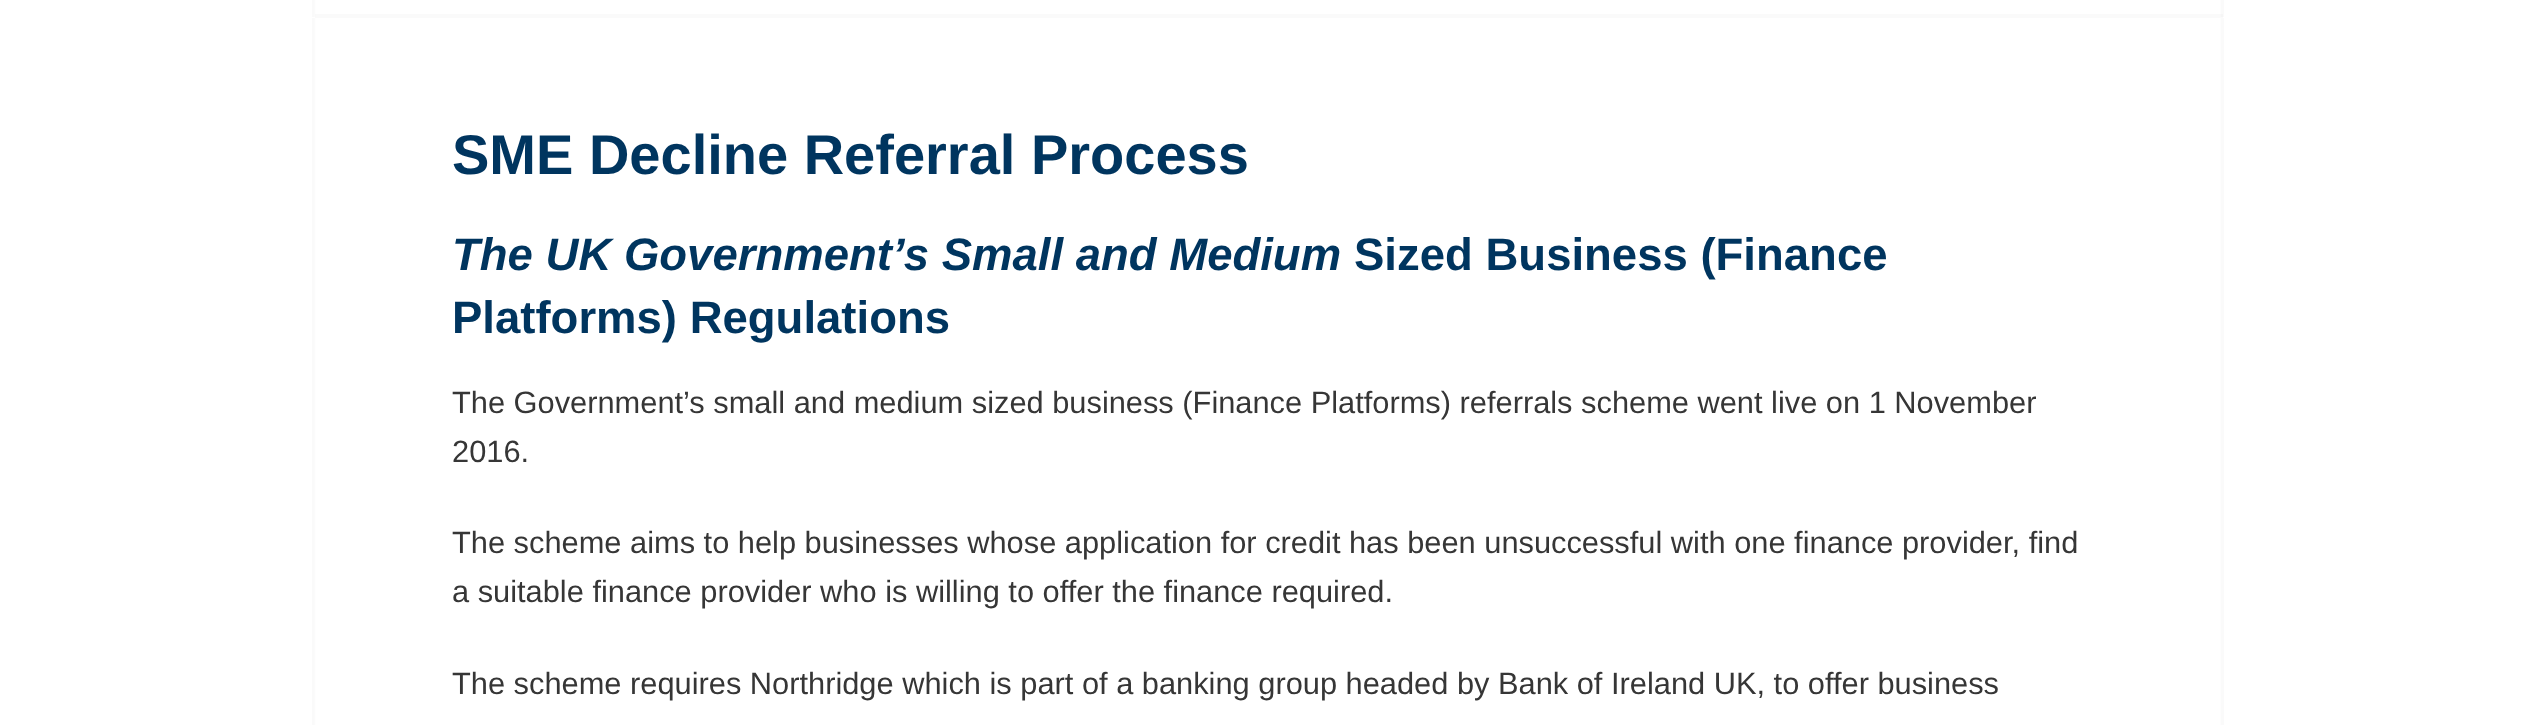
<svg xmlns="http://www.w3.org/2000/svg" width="2535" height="725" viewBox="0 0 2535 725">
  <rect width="100%" height="100%" fill="#ffffff"/>
  <image x="312" y="0" width="1912" height="17" href="img1.png"/>
  <rect x="315" y="14" width="1908" height="4" fill="#cacaca" fill-opacity="0.1"/>
  <image x="312" y="18" width="1912" height="707" href="img2.png"/>
  <text x="452" y="174" font-family="Liberation Sans" font-size="56" font-weight="bold" fill="#00355f">SME Decline Referral Process</text>
  <text x="452" y="270" font-family="Liberation Sans" font-size="45.5" font-weight="bold" font-style="italic" fill="#00355f">The UK Government’s Small and Medium</text>
  <text x="1354" y="270" font-family="Liberation Sans" font-size="45.5" font-weight="bold" fill="#00355f">Sized Business (Finance</text>
  <text x="452" y="333" font-family="Liberation Sans" font-size="45.5" font-weight="bold" fill="#00355f">Platforms) Regulations</text>
  <text x="452" y="413" font-family="Liberation Sans" font-size="30.8" fill="#363636">The Government’s small and medium sized business (Finance Platforms) referrals scheme went live on 1 November</text>
  <text x="452" y="462" font-family="Liberation Sans" font-size="30.8" fill="#363636">2016.</text>
  <text x="452" y="553" font-family="Liberation Sans" font-size="30.8" fill="#363636">The scheme aims to help businesses whose application for credit has been unsuccessful with one finance provider, find</text>
  <text x="452" y="602" font-family="Liberation Sans" font-size="30.8" fill="#363636">a suitable finance provider who is willing to offer the finance required.</text>
  <text x="452" y="694" font-family="Liberation Sans" font-size="30.8" fill="#363636">The scheme requires Northridge which is part of a banking group headed by Bank of Ireland UK, to offer business</text>
</svg>
